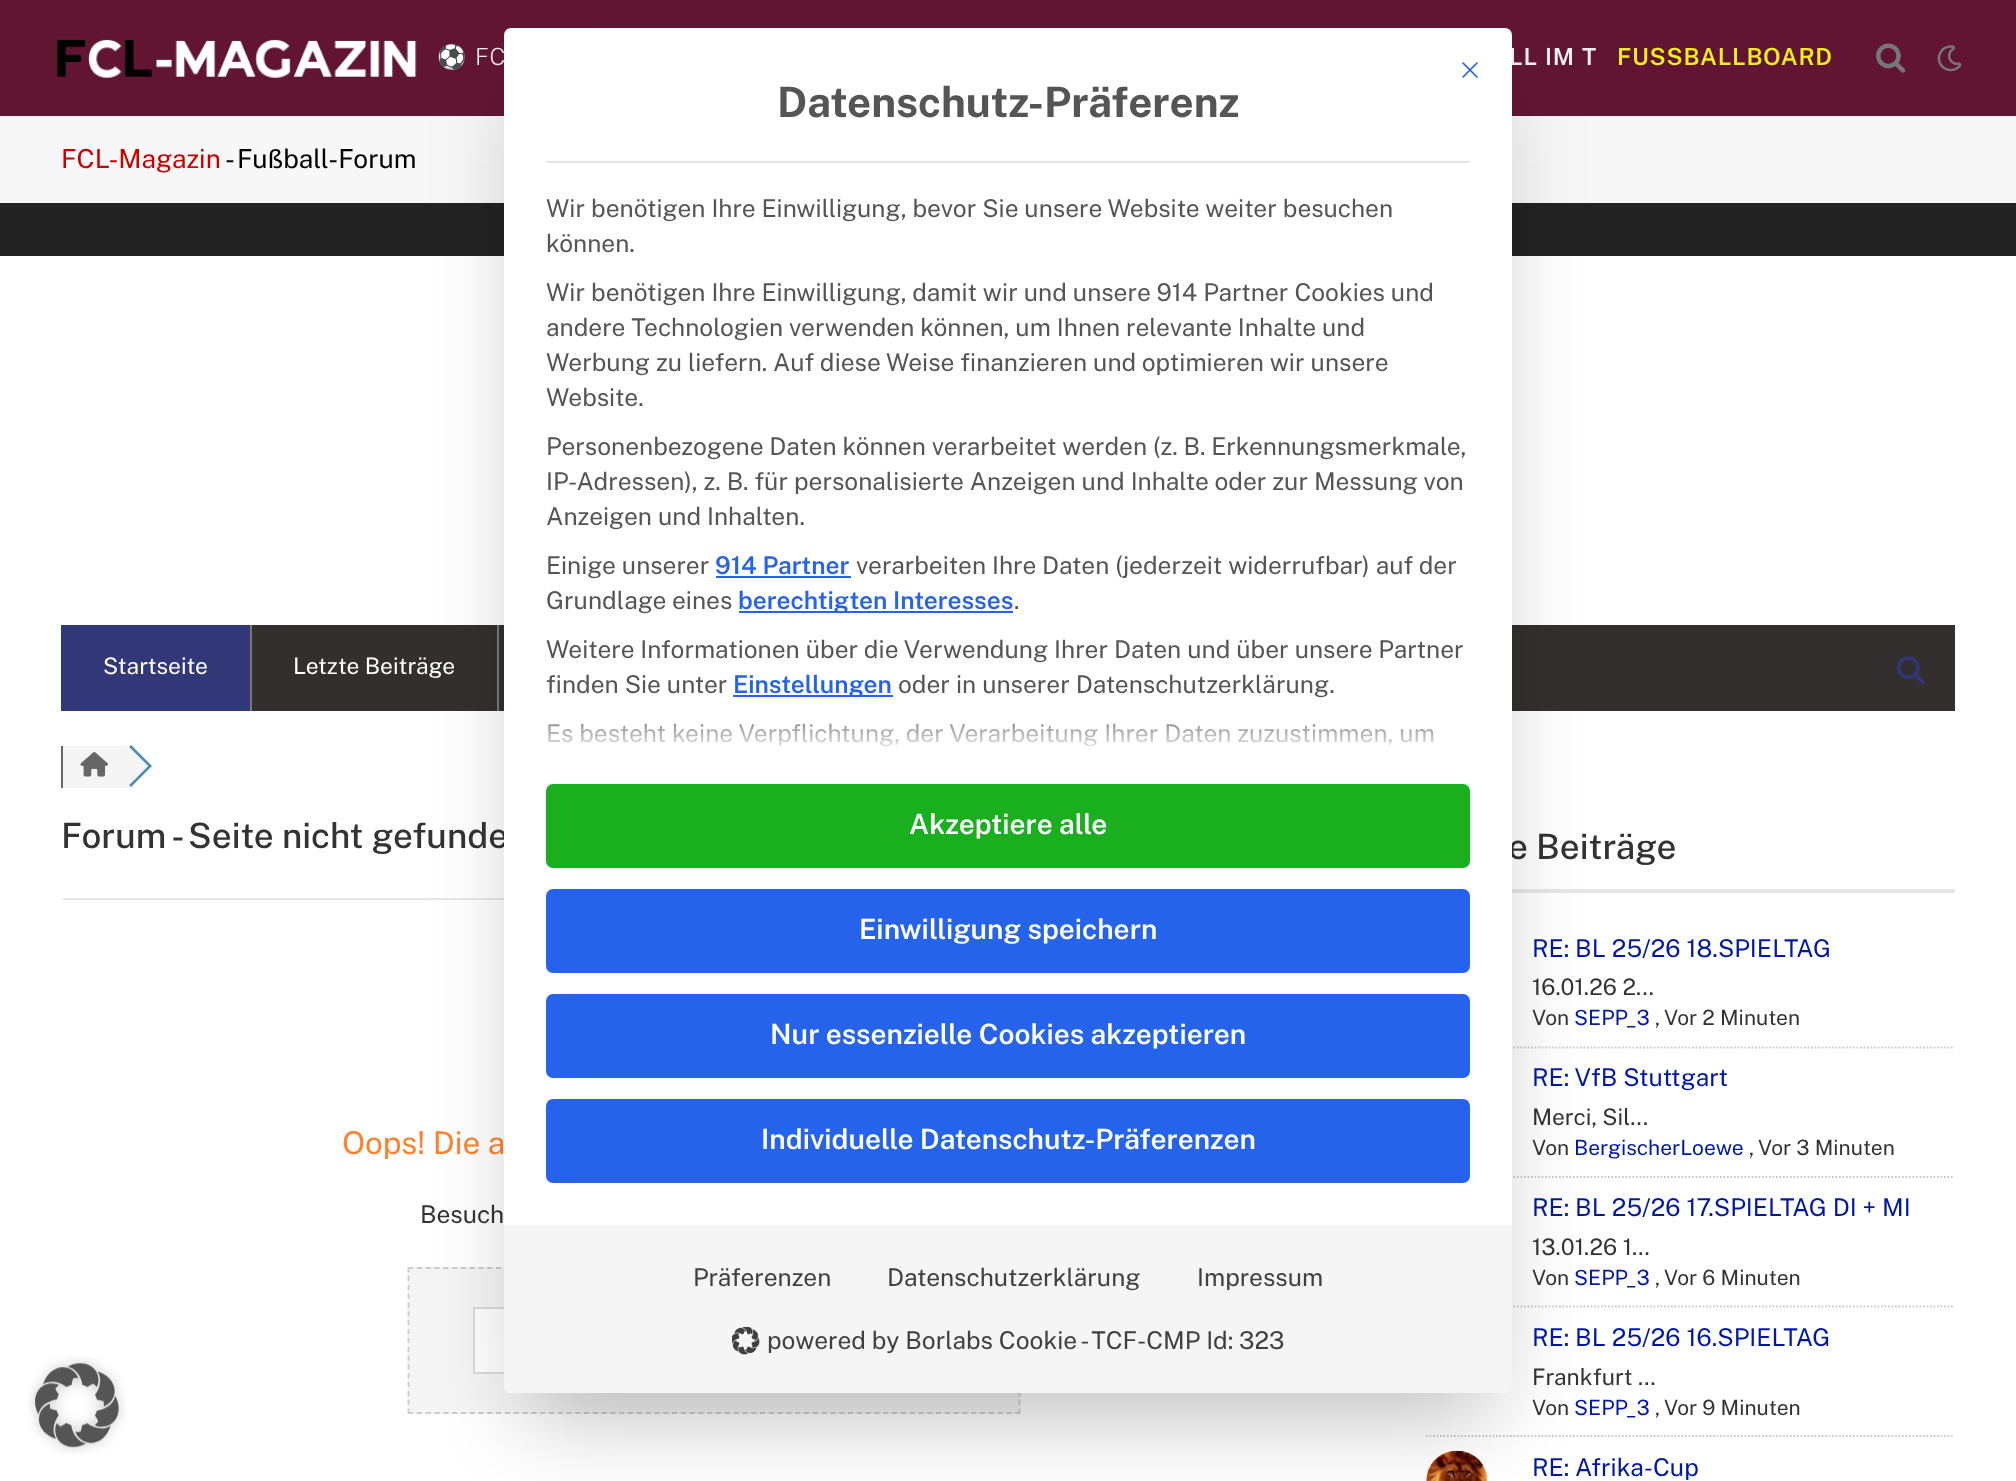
<svg xmlns="http://www.w3.org/2000/svg" width="2016" height="1481" viewBox="0 0 2016 1481">
  <defs>
    <filter id="blur1" x="-50%" y="-200%" width="200%" height="500%"><feGaussianBlur stdDeviation="44"/></filter>
    <linearGradient id="g1" gradientUnits="userSpaceOnUse" x1="1008" y1="756" x2="1008" y2="704"><stop offset="0" stop-color="#ffffff"/><stop offset="1" stop-color="#ffffff" stop-opacity="0"/></linearGradient>
  </defs>
  <rect width="100%" height="100%" fill="#232323"/>
  <rect x="0" y="0" width="2016" height="116" fill="#621533"/>
  <image x="56" y="39" width="361" height="39" href="img1.png"/>
  <text x="437" y="65" font-family="Noto Color Emoji" font-size="23.6" font-weight="bold" letter-spacing="0.75" fill="#f0f0f0">⚽️</text>
  <text x="475" y="65" font-family="Public Sans" font-size="23.6" font-weight="200" letter-spacing="0.75" fill="#f0f0f0">FC</text>
  <text x="1509" y="65" word-spacing="1" font-family="Public Sans" font-size="23.6" font-weight="600" letter-spacing="0.75" fill="#f0f0f0">LL IM T</text>
  <text x="1617" y="65" font-family="Public Sans" font-size="23.6" font-weight="600" letter-spacing="0.75" fill="#eeee22">FUSSBALLBOARD</text>
  <image x="1876" y="43" width="30" height="30" href="img2.png"/>
  <image x="1937" y="45" width="25" height="27" href="img3.png"/>
  <rect x="0" y="116" width="2016" height="87" fill="#f7f7f7"/>
  <text x="61" y="168" font-family="Public Sans" font-size="26.25" fill="#c90000">FCL-Magazin</text>
  <text x="225" y="168" font-family="Public Sans" font-size="26.25" fill="#000000">- Fußball-Forum</text>
  <rect x="0" y="256" width="2016" height="1225" fill="#ffffff"/>
  <rect x="252" y="625" width="1703" height="86" fill="#332f2f"/>
  <rect x="61" y="625" width="189" height="86" fill="#323877"/>
  <rect x="250" y="625" width="2" height="86" fill="#777777"/>
  <text x="103" y="674" font-family="Public Sans" font-size="22.75" fill="#ffffff">Startseite</text>
  <rect x="497" y="625" width="2" height="86" fill="#777777"/>
  <text x="293" y="674" font-family="Public Sans" font-size="22.75" fill="#ffffff">Letzte Beiträge</text>
  <image x="1897" y="656" width="28" height="29" href="img4.png"/>
  <rect x="63" y="746" width="72" height="42" fill="#f5f5f5"/>
  <rect x="61" y="746" width="2" height="42" fill="#666666"/>
  <image x="80" y="752" width="28" height="25" href="img5.png"/>
  <path d="M131 745L129 747L148 766L129 785L131 787L152 766Z" fill="#4a8eb3"/>
  <path d="M127 745L148 766L127 787L107 766Z" fill="#f5f5f5"/>
  <text x="61" y="848" font-family="Public Sans" font-size="35" font-weight="500" fill="#333333">Forum - Seite nicht gefunde</text>
  <rect x="63" y="898" width="441" height="2" fill="#e6e6e6"/>
  <text x="342" y="1154" font-family="Public Sans" font-size="31.5" fill="#ff812d">Oops! Die a</text>
  <text x="420" y="1223" font-family="Public Sans" font-size="24.5" fill="#333333">Besuch</text>
  <rect x="408" y="1267" width="612" height="147" fill="#f5f5f5"/>
  <path d="M408 1268H1020" fill="none" stroke="#cccccc" stroke-width="1.8" stroke-dasharray="5.25 3.55"/>
  <path d="M1019.5 1267V1414" fill="none" stroke="#cccccc" stroke-width="1.8" stroke-dasharray="5.25 3.6"/>
  <path d="M408 1413H1020" fill="none" stroke="#cccccc" stroke-width="1.8" stroke-dasharray="5.25 3.55"/>
  <path d="M408.5 1267V1414" fill="none" stroke="#cccccc" stroke-width="1.8" stroke-dasharray="5.25 3.6"/>
  <rect x="475" y="1309" width="29" height="63" fill="#ffffff"/>
  <rect x="474" y="1308" width="321" height="65" fill="none" stroke="#dadada" stroke-width="2"/>
  <rect x="1512" y="889" width="443" height="4" fill="#e6e6e6"/>
  <text x="1508" y="859" font-family="Public Sans" font-size="35" font-weight="500" fill="#333333">e Beiträge</text>
  <path d="M1426 1047.5H1953" fill="none" stroke="#cccccc" stroke-width="1.8" stroke-dasharray="1.75 1.75"/>
  <text x="1532" y="957" font-family="Public Sans" font-size="24.5" fill="#0018a3">RE: BL 25/26 18.SPIELTAG</text>
  <text x="1532" y="995" font-family="Public Sans" font-size="22.75" fill="#333333">16.01.26 2...</text>
  <text x="1532" y="1025" font-family="Public Sans" font-size="21" fill="#333333">Von</text>
  <text x="1574" y="1025" font-family="Public Sans" font-size="21" fill="#0018a3">SEPP_3</text>
  <text x="1655" y="1025" font-family="Public Sans" font-size="21" fill="#333333">,</text>
  <text x="1664" y="1025" font-family="Public Sans" font-size="21" fill="#333333">Vor 2 Minuten</text>
  <path d="M1426 1177H1953" fill="none" stroke="#cccccc" stroke-width="1.8" stroke-dasharray="1.75 1.75"/>
  <text x="1532" y="1086" font-family="Public Sans" font-size="24.5" fill="#0018a3">RE: VfB Stuttgart</text>
  <text x="1532" y="1125" font-family="Public Sans" font-size="22.75" fill="#333333">Merci, Sil...</text>
  <text x="1532" y="1155" font-family="Public Sans" font-size="21" fill="#333333">Von</text>
  <text x="1574" y="1155" font-family="Public Sans" font-size="21" fill="#0018a3">BergischerLoewe</text>
  <text x="1749" y="1155" font-family="Public Sans" font-size="21" fill="#333333">,</text>
  <text x="1758" y="1155" font-family="Public Sans" font-size="21" fill="#333333">Vor 3 Minuten</text>
  <path d="M1426 1306.5H1953" fill="none" stroke="#cccccc" stroke-width="1.8" stroke-dasharray="1.75 1.75"/>
  <text x="1532" y="1216" font-family="Public Sans" font-size="24.5" fill="#0018a3">RE: BL 25/26 17.SPIELTAG DI + MI</text>
  <text x="1532" y="1255" font-family="Public Sans" font-size="22.75" fill="#333333">13.01.26 1...</text>
  <text x="1532" y="1285" font-family="Public Sans" font-size="21" fill="#333333">Von</text>
  <text x="1574" y="1285" font-family="Public Sans" font-size="21" fill="#0018a3">SEPP_3</text>
  <text x="1655" y="1285" font-family="Public Sans" font-size="21" fill="#333333">,</text>
  <text x="1664" y="1285" font-family="Public Sans" font-size="21" fill="#333333">Vor 6 Minuten</text>
  <path d="M1426 1436H1953" fill="none" stroke="#cccccc" stroke-width="1.8" stroke-dasharray="1.75 1.75"/>
  <text x="1532" y="1346" font-family="Public Sans" font-size="24.5" fill="#0018a3">RE: BL 25/26 16.SPIELTAG</text>
  <text x="1532" y="1385" font-family="Public Sans" font-size="22.75" fill="#333333">Frankfurt ...</text>
  <text x="1532" y="1415" font-family="Public Sans" font-size="21" fill="#333333">Von</text>
  <text x="1574" y="1415" font-family="Public Sans" font-size="21" fill="#0018a3">SEPP_3</text>
  <text x="1655" y="1415" font-family="Public Sans" font-size="21" fill="#333333">,</text>
  <text x="1664" y="1415" font-family="Public Sans" font-size="21" fill="#333333">Vor 9 Minuten</text>
  <image x="1426" y="1450" width="62" height="31" href="img6.png"/>
  <text x="1532" y="1476" font-family="Public Sans" font-size="24.5" fill="#0018a3">RE: Afrika-Cup</text>
  <rect x="525" y="93" width="966" height="1323" fill="#000000" fill-opacity="0.25" filter="url(#blur1)"/>
  <rect x="504" y="28" width="1008" height="1365" rx="7" fill="#ffffff"/>
  <path d="M1463 77L1477 63M1463 63L1477 77" fill="none" stroke="#2563eb" stroke-width="1.7" stroke-linecap="round" stroke-linejoin="round"/>
  <rect x="546" y="161" width="924" height="2" fill="#e5e5e5"/>
  <text x="777" y="117" font-family="Public Sans" font-size="42" font-weight="bold" fill="#555555">Datenschutz-Präferenz</text>
  <text x="546" y="217" font-family="Public Sans" font-size="24.5" fill="#555555">Wir benötigen Ihre Einwilligung, bevor Sie unsere Website weiter besuchen</text>
  <text x="546" y="252" font-family="Public Sans" font-size="24.5" fill="#555555">können.</text>
  <text x="546" y="301" font-family="Public Sans" font-size="24.5" fill="#555555">Wir benötigen Ihre Einwilligung, damit wir und unsere 914 Partner Cookies und</text>
  <text x="546" y="336" font-family="Public Sans" font-size="24.5" fill="#555555">andere Technologien verwenden können, um Ihnen relevante Inhalte und</text>
  <text x="546" y="371" font-family="Public Sans" font-size="24.5" fill="#555555">Werbung zu liefern. Auf diese Weise finanzieren und optimieren wir unsere</text>
  <text x="546" y="406" font-family="Public Sans" font-size="24.5" fill="#555555">Website.</text>
  <text x="546" y="455" font-family="Public Sans" font-size="24.5" fill="#555555">Personenbezogene Daten können verarbeitet werden (z. B. Erkennungsmerkmale,</text>
  <text x="546" y="490" font-family="Public Sans" font-size="24.5" fill="#555555">IP-Adressen), z. B. für personalisierte Anzeigen und Inhalte oder zur Messung von</text>
  <text x="546" y="525" font-family="Public Sans" font-size="24.5" fill="#555555">Anzeigen und Inhalten.</text>
  <text x="546" y="574" font-family="Public Sans" font-size="24.5" fill="#555555">Einige unserer</text>
  <text x="715" y="574" font-family="Public Sans" font-size="24.5" font-weight="600" fill="#2563eb">914 Partner</text>
  <rect x="716" y="576" width="135" height="2" fill="#2563eb"/>
  <text x="856" y="574" font-family="Public Sans" font-size="24.5" fill="#555555">verarbeiten Ihre Daten (jederzeit widerrufbar) auf der</text>
  <text x="546" y="609" font-family="Public Sans" font-size="24.5" fill="#555555">Grundlage eines</text>
  <rect x="739" y="611" width="274" height="2" fill="#2563eb"/>
  <text x="738" y="609" font-family="Public Sans" font-size="24.5" font-weight="600" fill="#2563eb">berechtigten Interesses</text>
  <text x="1014" y="609" font-family="Public Sans" font-size="24.5" fill="#555555">.</text>
  <text x="546" y="658" font-family="Public Sans" font-size="24.5" fill="#555555">Weitere Informationen über die Verwendung Ihrer Daten und über unsere Partner</text>
  <text x="546" y="693" font-family="Public Sans" font-size="24.5" fill="#555555">finden Sie unter</text>
  <rect x="733" y="695" width="160" height="2" fill="#2563eb"/>
  <text x="733" y="693" font-family="Public Sans" font-size="24.5" font-weight="600" fill="#2563eb">Einstellungen</text>
  <text x="898" y="693" font-family="Public Sans" font-size="24.5" fill="#555555">oder in unserer Datenschutzerklärung.</text>
  <text x="546" y="742" font-family="Public Sans" font-size="24.5" fill="#555555">Es besteht keine Verpflichtung, der Verarbeitung Ihrer Daten zuzustimmen, um</text>
  <rect x="548" y="723" width="886" height="24" fill="url(#g1)"/>
  <rect x="546" y="784" width="924" height="84" rx="7" fill="#1aaf1f"/>
  <text x="909" y="834" font-family="Public Sans" font-size="28" font-weight="600" fill="#ffffff">Akzeptiere alle</text>
  <rect x="546" y="889" width="924" height="84" rx="7" fill="#2563eb"/>
  <text x="859" y="939" font-family="Public Sans" font-size="28" font-weight="600" fill="#ffffff">Einwilligung speichern</text>
  <rect x="546" y="994" width="924" height="84" rx="7" fill="#2563eb"/>
  <text x="770" y="1044" font-family="Public Sans" font-size="28" font-weight="600" fill="#ffffff">Nur essenzielle Cookies akzeptieren</text>
  <rect x="546" y="1099" width="924" height="84" rx="7" fill="#2563eb"/>
  <text x="761" y="1149" font-family="Public Sans" font-size="28" font-weight="600" fill="#ffffff">Individuelle Datenschutz-Präferenzen</text>
  <path d="M504 1225H1512V1386C1512 1390 1509 1393 1505 1393H511C507 1393 504 1390 504 1386Z" fill="#f5f5f5"/>
  <text x="693" y="1286" font-family="Public Sans" font-size="24.5" fill="#404040">Präferenzen</text>
  <text x="887" y="1286" font-family="Public Sans" font-size="24.5" fill="#404040">Datenschutzerklärung</text>
  <text x="1197" y="1286" font-family="Public Sans" font-size="24.5" fill="#404040">Impressum</text>
  <image x="732" y="1327" width="28" height="28" href="img7.png"/>
  <text x="767" y="1349" font-family="Public Sans" font-size="24.5" fill="#404040">powered by Borlabs Cookie - TCF-CMP Id: 323</text>
  <image x="28" y="1356" width="98" height="98" href="img8.png"/>
</svg>
